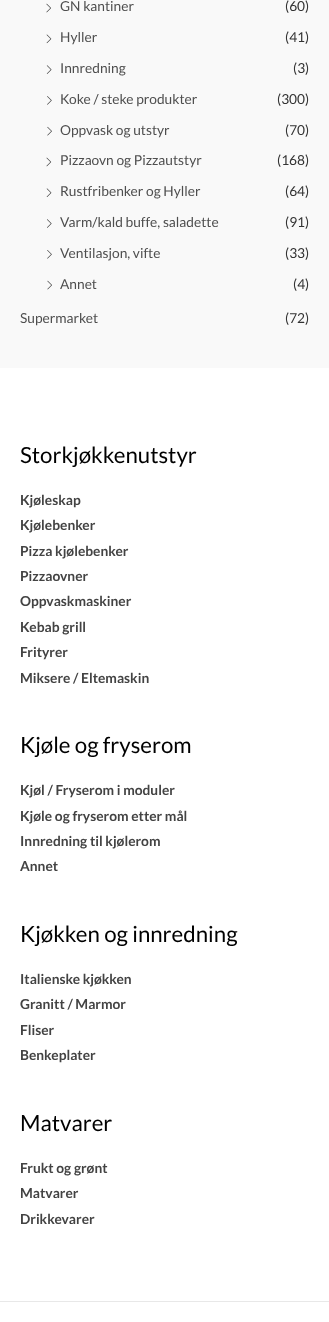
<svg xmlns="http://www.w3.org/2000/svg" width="329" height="1322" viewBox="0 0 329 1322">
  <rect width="100%" height="100%" fill="#f9f9f9"/>
  <image x="46" y="3" width="5" height="10" href="img1.png"/>
  <text x="60" y="11" font-family="Lato" font-size="13.75" fill="#4e4e4e">GN kantiner</text>
  <text x="285" y="11" font-family="Lato" font-size="13.75" fill="#333333">(60)</text>
  <image x="46" y="34" width="6" height="10" href="img2.png"/>
  <text x="60" y="42" font-family="Lato" font-size="13.75" fill="#4e4e4e">Hyller</text>
  <text x="285" y="42" font-family="Lato" font-size="13.75" fill="#333333">(41)</text>
  <image x="46" y="65" width="6" height="9" href="img3.png"/>
  <text x="60" y="73" font-family="Lato" font-size="13.75" fill="#4e4e4e">Innredning</text>
  <text x="293" y="73" font-family="Lato" font-size="13.75" fill="#333333">(3)</text>
  <image x="47" y="96" width="5" height="9" href="img4.png"/>
  <text x="60" y="104" font-family="Lato" font-size="13.75" fill="#4e4e4e">Koke / steke produkter</text>
  <text x="277" y="104" font-family="Lato" font-size="13.75" fill="#333333">(300)</text>
  <image x="47" y="126" width="5" height="10" href="img5.png"/>
  <text x="60" y="135" font-family="Lato" font-size="13.75" fill="#4e4e4e">Oppvask og utstyr</text>
  <text x="285" y="135" font-family="Lato" font-size="13.75" fill="#333333">(70)</text>
  <image x="46" y="157" width="6" height="10" href="img6.png"/>
  <text x="60" y="165" font-family="Lato" font-size="13.75" fill="#4e4e4e">Pizzaovn og Pizzautstyr</text>
  <text x="277" y="165" font-family="Lato" font-size="13.75" fill="#333333">(168)</text>
  <image x="46" y="188" width="6" height="9" href="img7.png"/>
  <text x="60" y="196" font-family="Lato" font-size="13.75" fill="#4e4e4e">Rustfribenker og Hyller</text>
  <text x="285" y="196" font-family="Lato" font-size="13.75" fill="#333333">(64)</text>
  <image x="47" y="219" width="5" height="9" href="img8.png"/>
  <text x="60" y="227" font-family="Lato" font-size="13.75" fill="#4e4e4e">Varm/kald buffe, saladette</text>
  <text x="285" y="227" font-family="Lato" font-size="13.75" fill="#333333">(91)</text>
  <image x="47" y="250" width="5" height="9" href="img9.png"/>
  <text x="60" y="258" font-family="Lato" font-size="13.75" fill="#4e4e4e">Ventilasjon, vifte</text>
  <text x="285" y="258" font-family="Lato" font-size="13.75" fill="#333333">(33)</text>
  <image x="47" y="280" width="5" height="10" href="img10.png"/>
  <text x="60" y="289" font-family="Lato" font-size="13.75" fill="#4e4e4e">Annet</text>
  <text x="293" y="289" font-family="Lato" font-size="13.75" fill="#333333">(4)</text>
  <text x="20" y="323" font-family="Lato" font-size="13.75" fill="#4e4e4e">Supermarket</text>
  <text x="285" y="323" font-family="Lato" font-size="13.75" fill="#333333">(72)</text>
  <rect x="0" y="368" width="329" height="933" fill="#ffffff"/>
  <text x="20" y="463" font-family="Lato" font-size="22.25" fill="#000000">Storkjøkkenutstyr</text>
  <text x="20" y="505" font-family="Lato" font-size="13.75" font-weight="bold" fill="#434343">Kjøleskap</text>
  <text x="20" y="530" font-family="Lato" font-size="13.75" font-weight="bold" fill="#434343">Kjølebenker</text>
  <text x="20" y="556" font-family="Lato" font-size="13.75" font-weight="bold" fill="#434343">Pizza kjølebenker</text>
  <text x="20" y="581" font-family="Lato" font-size="13.75" font-weight="bold" fill="#434343">Pizzaovner</text>
  <text x="20" y="606" font-family="Lato" font-size="13.75" font-weight="bold" fill="#434343">Oppvaskmaskiner</text>
  <text x="20" y="632" font-family="Lato" font-size="13.75" font-weight="bold" fill="#434343">Kebab grill</text>
  <text x="20" y="657" font-family="Lato" font-size="13.75" font-weight="bold" fill="#434343">Frityrer</text>
  <text x="20" y="683" font-family="Lato" font-size="13.75" font-weight="bold" fill="#434343">Miksere / Eltemaskin</text>
  <text x="20" y="753" font-family="Lato" font-size="22.25" fill="#000000">Kjøle og fryserom</text>
  <text x="20" y="795" font-family="Lato" font-size="13.75" font-weight="bold" fill="#434343">Kjøl / Fryserom i moduler</text>
  <text x="20" y="821" font-family="Lato" font-size="13.75" font-weight="bold" fill="#434343">Kjøle og fryserom etter mål</text>
  <text x="20" y="846" font-family="Lato" font-size="13.75" font-weight="bold" fill="#434343">Innredning til kjølerom</text>
  <text x="20" y="871" font-family="Lato" font-size="13.75" font-weight="bold" fill="#434343">Annet</text>
  <text x="20" y="942" font-family="Lato" font-size="22.25" fill="#000000">Kjøkken og innredning</text>
  <text x="20" y="984" font-family="Lato" font-size="13.75" font-weight="bold" fill="#434343">Italienske kjøkken</text>
  <text x="20" y="1009" font-family="Lato" font-size="13.75" font-weight="bold" fill="#434343">Granitt / Marmor</text>
  <text x="20" y="1035" font-family="Lato" font-size="13.75" font-weight="bold" fill="#434343">Fliser</text>
  <text x="20" y="1060" font-family="Lato" font-size="13.75" font-weight="bold" fill="#434343">Benkeplater</text>
  <text x="20" y="1131" font-family="Lato" font-size="22.25" fill="#000000">Matvarer</text>
  <text x="20" y="1173" font-family="Lato" font-size="13.75" font-weight="bold" fill="#434343">Frukt og grønt</text>
  <text x="20" y="1198" font-family="Lato" font-size="13.75" font-weight="bold" fill="#434343">Matvarer</text>
  <text x="20" y="1224" font-family="Lato" font-size="13.75" font-weight="bold" fill="#434343">Drikkevarer</text>
  <rect x="0" y="1301" width="329" height="1" fill="#e8e8e8"/>
  <rect x="0" y="1302" width="329" height="20" fill="#ffffff"/>
</svg>
